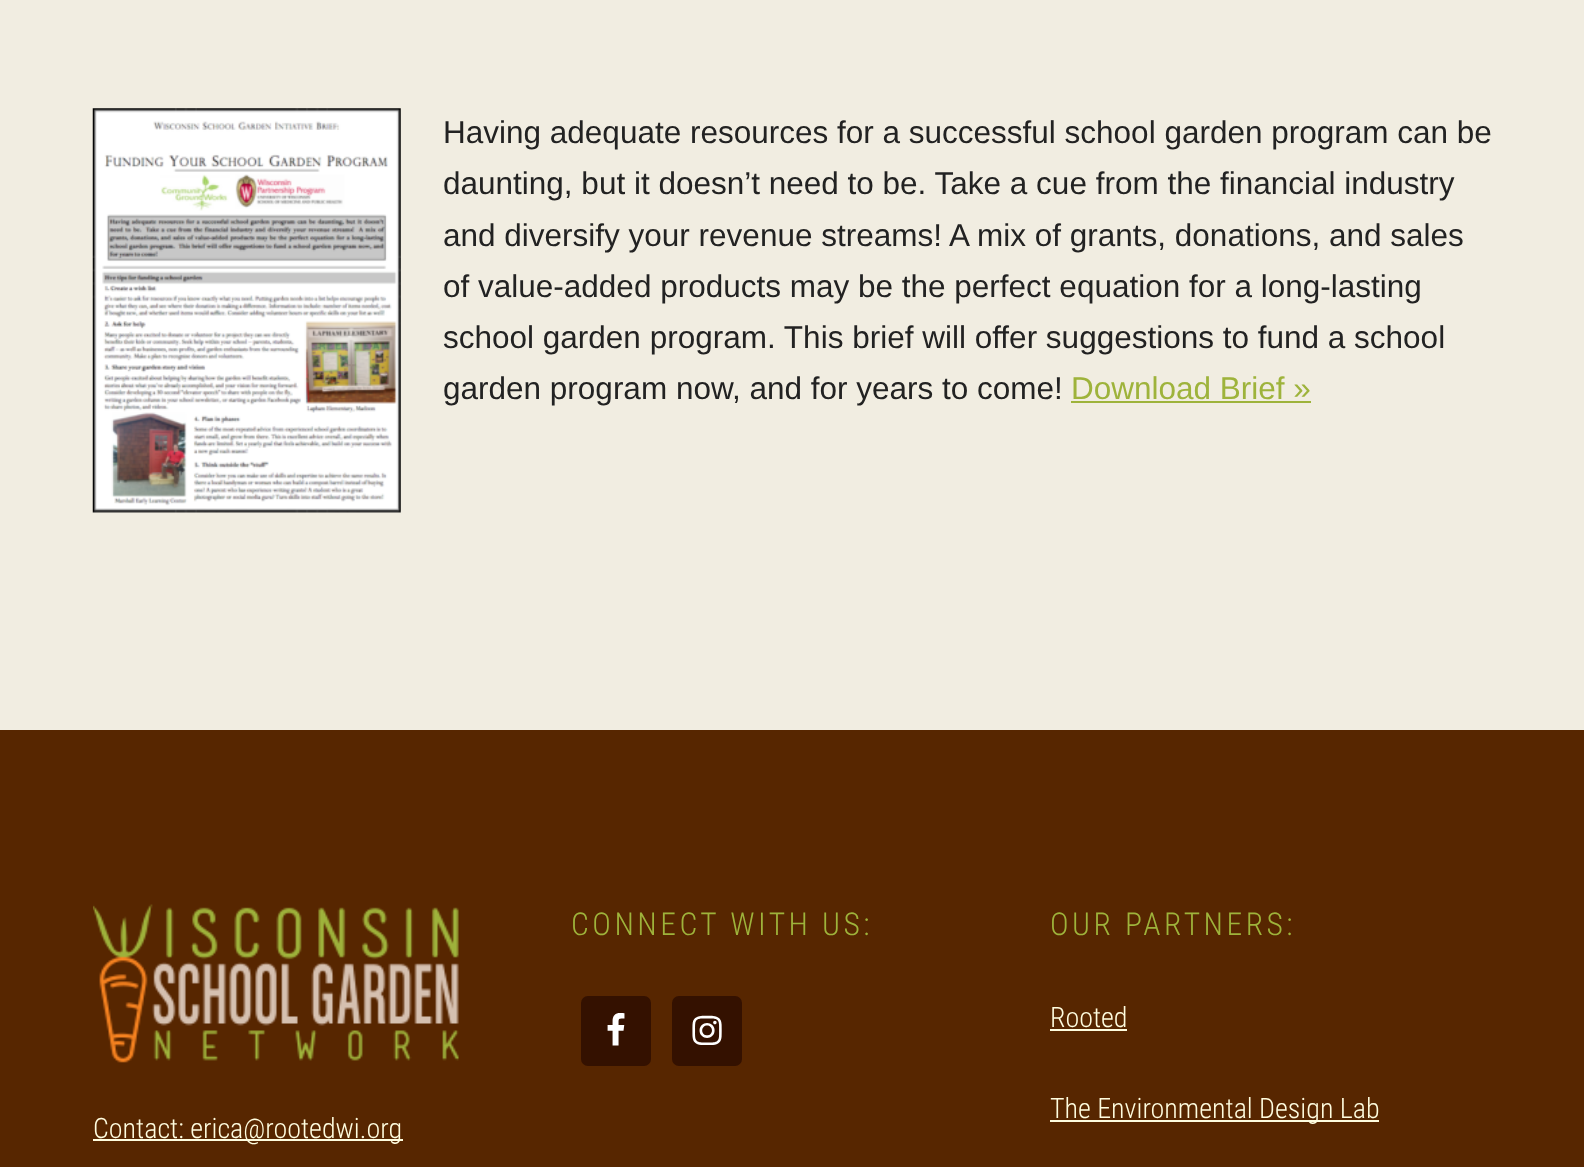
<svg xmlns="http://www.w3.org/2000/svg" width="1584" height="1167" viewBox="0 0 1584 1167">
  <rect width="100%" height="100%" fill="#f1ede1"/>
  <image x="92" y="108" width="309" height="405" href="img1.png"/>
  <text x="443" y="143" font-family="Liberation Sans" font-size="31.5" fill="#222222">Having adequate resources for a successful school garden program can be</text>
  <text x="443" y="194" font-family="Liberation Sans" font-size="31.5" fill="#222222">daunting, but it doesn’t need to be. Take a cue from the financial industry</text>
  <text x="443" y="246" font-family="Liberation Sans" font-size="31.5" fill="#222222">and diversify your revenue streams! A mix of grants, donations, and sales</text>
  <text x="443" y="297" font-family="Liberation Sans" font-size="31.5" fill="#222222">of value-added products may be the perfect equation for a long-lasting</text>
  <text x="443" y="348" font-family="Liberation Sans" font-size="31.5" fill="#222222">school garden program. This brief will offer suggestions to fund a school</text>
  <text x="443" y="399" font-family="Liberation Sans" font-size="31.5" fill="#222222">garden program now, and for years to come!</text>
  <text x="1071" y="399" font-family="Liberation Sans" font-size="31.5" fill="#9eb33b">Download Brief »</text>
  <rect x="1071" y="401" width="240" height="2" fill="#9eb33b"/>
  <rect x="0" y="730" width="1584" height="437" fill="#572600"/>
  <text x="571" y="935" font-family="Roboto Condensed" font-size="31.5" font-weight="300" letter-spacing="3.5" fill="#9eb33b">CONNECT WITH US:</text>
  <rect x="581" y="996" width="70" height="70" rx="7" fill="#341100"/>
  <image x="607" y="1013" width="18" height="33" href="img2.png"/>
  <rect x="672" y="996" width="70" height="70" rx="7" fill="#341100"/>
  <image x="692" y="1015" width="30" height="30" href="img3.png"/>
  <text x="1050" y="935" font-family="Roboto Condensed" font-size="31.5" font-weight="300" letter-spacing="3.5" fill="#9eb33b">OUR PARTNERS:</text>
  <text x="1050" y="1027" font-family="Roboto Condensed" font-size="28" font-weight="300" fill="#fffddf">Rooted</text>
  <rect x="1050" y="1029" width="77" height="2" fill="#fffddf"/>
  <rect x="1050" y="1120" width="329" height="2" fill="#fffddf"/>
  <text x="1050" y="1118" font-family="Roboto Condensed" font-size="28" font-weight="300" fill="#fffddf">The Environmental Design Lab</text>
  <image x="93" y="904" width="366" height="159" href="img4.png"/>
  <rect x="93" y="1139" width="310" height="2" fill="#fffddf"/>
  <text x="93" y="1138" font-family="Roboto Condensed" font-size="28" font-weight="300" fill="#fffddf">Contact: erica@rootedwi.org</text>
</svg>
